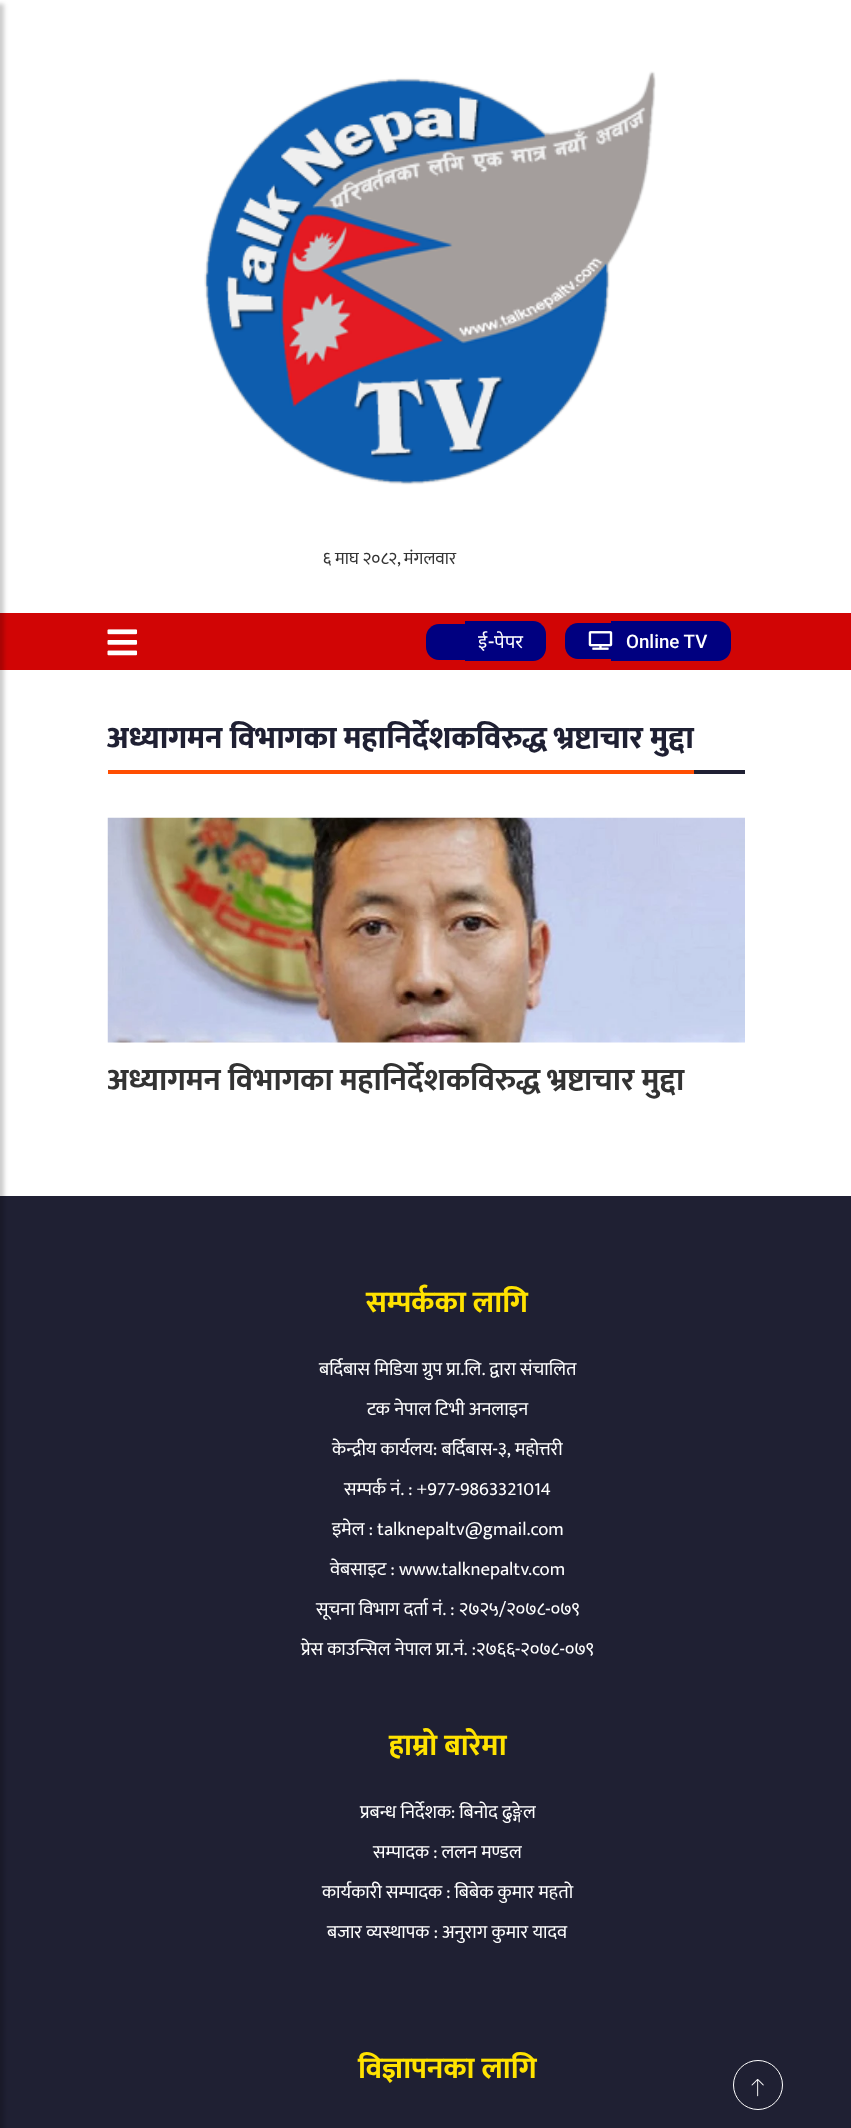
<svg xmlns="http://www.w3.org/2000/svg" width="851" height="2128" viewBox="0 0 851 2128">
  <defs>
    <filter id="blur1" x="-50%" y="-200%" width="200%" height="500%"><feGaussianBlur stdDeviation="2"/></filter>
    <clipPath id="clip1"><rect x="108" y="818" width="637" height="303"/></clipPath>
  </defs>
  <rect width="100%" height="100%" fill="#ffffff"/>
  <rect x="0" y="613" width="851" height="57" fill="#d10505"/>
  <rect x="0" y="1196" width="851" height="932" fill="#1f2033"/>
  <rect x="-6" y="4" width="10" height="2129" fill="#000000" fill-opacity="0.2" filter="url(#blur1)"/>
  <image x="204" y="71" width="452" height="414" href="img1.png"/>
  <image x="323" y="549" width="134" height="18" href="img2.png"/>
  <image x="107" y="629" width="31" height="27" href="img3.png"/>
  <rect x="465" y="621" width="14" height="40" fill="#000080"/>
  <path d="M479 621H533C540 621 546 627 546 634V648C546 655 540 661 533 661H479Z" fill="#000080"/>
  <text x="478" y="648" font-family="Noto Sans" font-size="18.75" fill="#ffffff">ई</text>
  <path d="M439 624H465V660H439C432 660 426 654 426 647V637C426 630 432 624 439 624Z" fill="#000080"/>
  <text x="488" y="648" font-family="Roboto" font-size="18.75" font-weight="500" fill="#ffffff">-</text>
  <text x="494" y="648" font-family="Noto Sans" font-size="18.75" fill="#ffffff">पेपर</text>
  <path d="M578 623H611V659H578C571 659 565 653 565 646V636C565 629 571 623 578 623Z" fill="#000080"/>
  <rect x="611" y="621" width="14" height="40" fill="#000080"/>
  <path d="M625 621H718C725 621 731 627 731 634V648C731 655 725 661 718 661H625Z" fill="#000080"/>
  <image x="588" y="631" width="25" height="19" href="img4.png"/>
  <text x="626" y="648" font-family="Roboto" font-size="18.75" font-weight="500" fill="#ffffff">Online TV</text>
  <rect x="694" y="770" width="51" height="4" fill="#1f2033"/>
  <text x="107" y="748" font-family="Ek Mukta" font-size="31.25" font-weight="800" fill="#1f2033">अध्यागमन विभागका महानिर्देशकविरुद्ध भ्रष्टाचार मुद्दा</text>
  <rect x="108" y="770" width="586" height="4" fill="#ff4e02"/>
  <image x="107" y="817" width="638" height="226" href="img5.png"/>
  <g clip-path="url(#clip1)">
    <text x="107" y="1090" font-family="Ek Mukta" font-size="31.25" font-weight="bold" fill="#333333">अध्यागमन विभागका महानिर्देशकविरुद्ध भ्रष्टाचार मुद्दा</text>
  </g>
  <text x="366" y="1312" font-family="Ek Mukta" font-size="30" font-weight="bold" fill="#ffe200">सम्पर्कका लागि</text>
  <text x="319" y="1375" font-family="Ek Mukta" font-size="18.75" fill="#ffffff">बर्दिबास मिडिया ग्रुप प्रा.लि. द्वारा संचालित</text>
  <text x="367" y="1415" font-family="Ek Mukta" font-size="18.75" fill="#ffffff">टक नेपाल टिभी अनलाइन</text>
  <text x="332" y="1455" font-family="Ek Mukta" font-size="18.75" fill="#ffffff">केन्द्रीय कार्यलय: बर्दिबास-३, महोत्तरी</text>
  <text x="344" y="1495" font-family="Ek Mukta" font-size="18.75" fill="#ffffff">सम्पर्क नं. : +977-9863321014</text>
  <text x="332" y="1535" font-family="Ek Mukta" font-size="18.75" fill="#ffffff">इमेल : talknepaltv@gmail.com</text>
  <text x="330" y="1575" font-family="Ek Mukta" font-size="18.75" fill="#ffffff">वेबसाइट : www.talknepaltv.com</text>
  <text x="316" y="1615" font-family="Ek Mukta" font-size="18.75" fill="#ffffff">सूचना विभाग दर्ता नं. : २७२५/२०७८-०७९</text>
  <text x="301" y="1655" font-family="Ek Mukta" font-size="18.75" fill="#ffffff">प्रेस काउन्सिल नेपाल प्रा.नं. :२७६६-२०७८-०७९</text>
  <text x="389" y="1755" font-family="Ek Mukta" font-size="30" font-weight="bold" fill="#ffe200">हाम्रो बारेमा</text>
  <text x="360" y="1818" font-family="Ek Mukta" font-size="18.75" fill="#ffffff">प्रबन्ध निर्देशक: बिनोद ढुङ्गेल</text>
  <text x="373" y="1858" font-family="Ek Mukta" font-size="18.75" fill="#ffffff">सम्पादक : ललन मण्डल</text>
  <text x="322" y="1898" font-family="Ek Mukta" font-size="18.75" fill="#ffffff">कार्यकारी सम्पादक : बिबेक कुमार महतो</text>
  <text x="327" y="1938" font-family="Ek Mukta" font-size="18.75" fill="#ffffff">बजार व्यस्थापक : अनुराग कुमार यादव</text>
  <text x="358" y="2078" font-family="Ek Mukta" font-size="30" font-weight="bold" fill="#ffe200">विज्ञापनका लागि</text>
  <circle cx="758" cy="2085" r="24.5" fill="none" stroke="#ffffff"/>
  <image x="751" y="2079" width="13" height="18" href="img6.png"/>
</svg>
